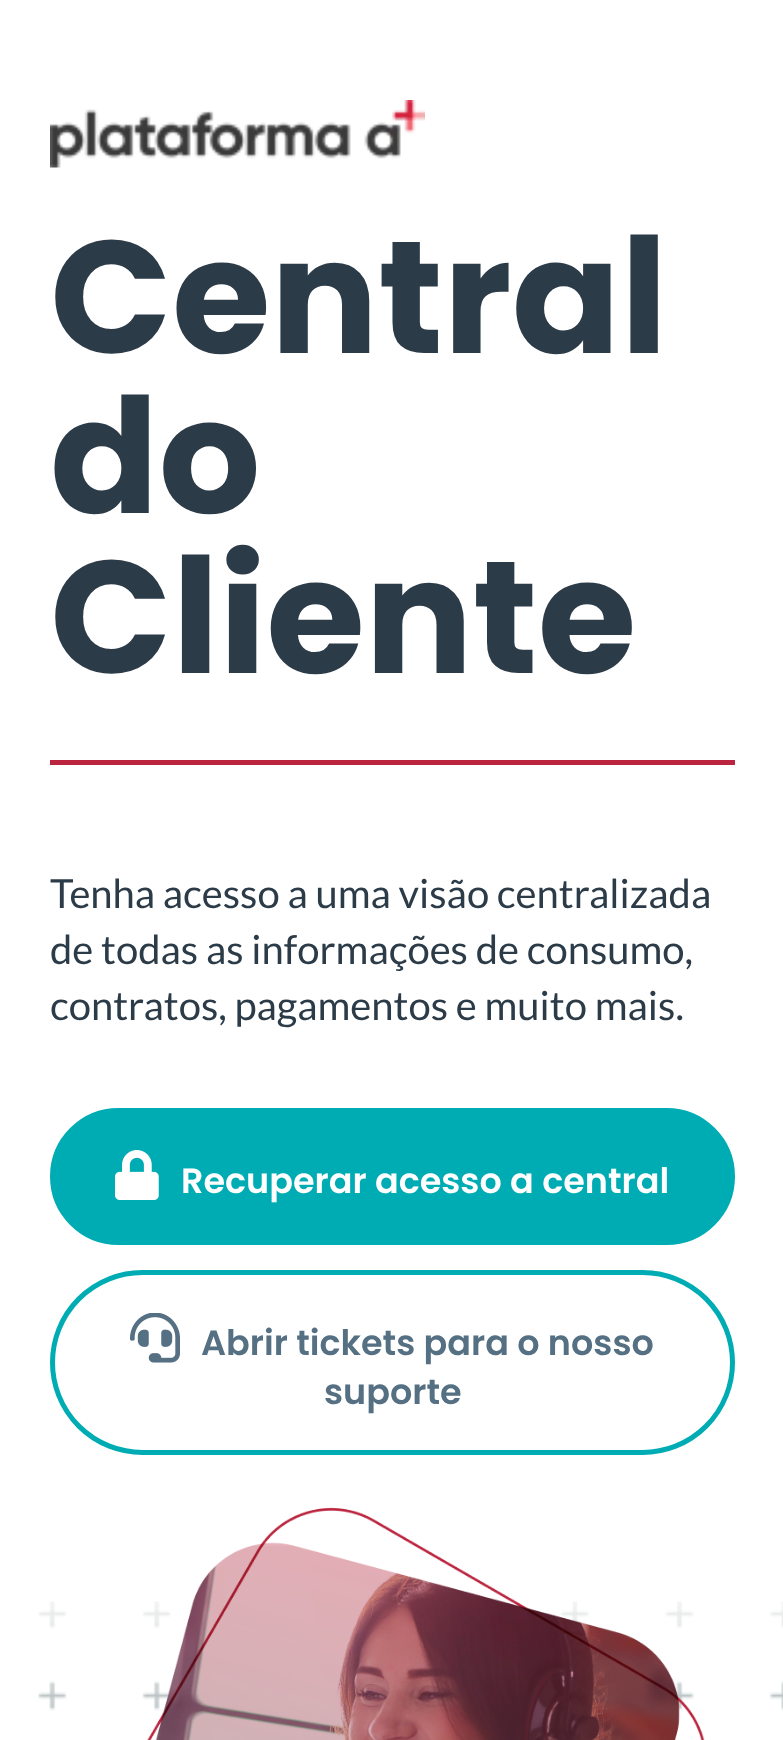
<svg xmlns="http://www.w3.org/2000/svg" width="783" height="1740" viewBox="0 0 783 1740">
  <rect width="100%" height="100%" fill="#ffffff"/>
  <image x="50" y="100" width="375" height="68" href="img1.png"/>
  <rect x="50" y="760" width="685" height="5" fill="#bb243e"/>
  <text x="50" y="353" font-family="Poppins" font-size="160" font-weight="bold" fill="#2c3b48">Central</text>
  <text x="50" y="513" font-family="Poppins" font-size="160" font-weight="bold" fill="#2c3b48">do</text>
  <text x="50" y="673" font-family="Poppins" font-size="160" font-weight="bold" fill="#2c3b48">Cliente</text>
  <text x="50" y="908" font-family="Lato" font-size="40" fill="#2c3b48">Tenha acesso a uma visão centralizada</text>
  <text x="50" y="964" font-family="Lato" font-size="40" fill="#2c3b48">de todas as informações de consumo,</text>
  <text x="50" y="1020" font-family="Lato" font-size="40" fill="#2c3b48">contratos, pagamentos e muito mais.</text>
  <rect x="52.5" y="1110.5" width="680" height="132" rx="66" fill="#00acb3" stroke="#00acb3" stroke-width="5"/>
  <image x="115" y="1150" width="44" height="50" href="img2.png"/>
  <text x="181" y="1193" font-family="Poppins" font-size="35" font-weight="600" fill="#ffffff">Recuperar acesso a central</text>
  <rect x="52.5" y="1272.5" width="680" height="180" rx="90" fill="none" stroke="#00acb3" stroke-width="5"/>
  <image x="130" y="1313" width="50" height="50" href="img3.png"/>
  <text x="201" y="1355" font-family="Poppins" font-size="35" font-weight="600" fill="#556f83">Abrir tickets para o nosso</text>
  <text x="324" y="1404" font-family="Poppins" font-size="35" font-weight="600" fill="#556f83">suporte</text>
  <image x="38" y="1601" width="745" height="110" href="img5.png"/>
  <image x="147" y="1507" width="558" height="233" href="img4.png"/>
</svg>
